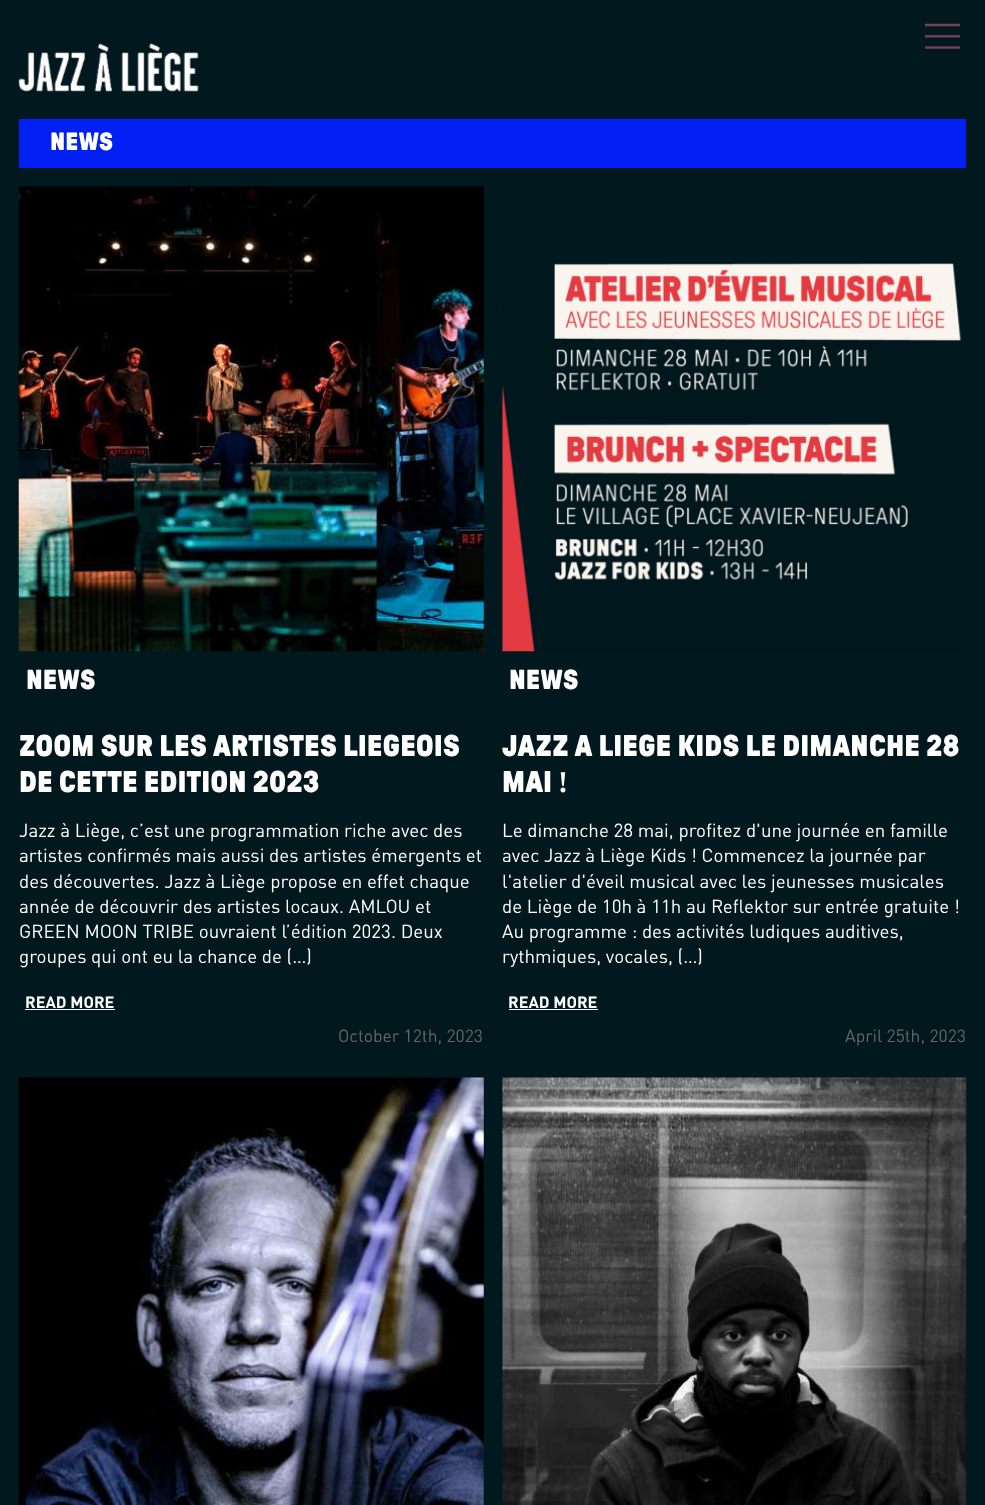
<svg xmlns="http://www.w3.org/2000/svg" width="985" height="1505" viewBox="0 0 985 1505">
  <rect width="100%" height="100%" fill="#00181e"/>
  <image x="925" y="23" width="35" height="26" href="img1.png"/>
  <image x="18" y="43" width="181" height="49" href="img2.png"/>
  <rect x="19" y="119" width="947" height="49" fill="#021ff4"/>
  <text x="50" y="150" font-family="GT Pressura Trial" font-size="25" font-weight="900" fill="#ffffff">NEWS</text>
  <image x="18" y="186" width="466" height="466" href="img3.png"/>
  <text x="26" y="689" font-family="GT Pressura Trial" font-size="27.5" font-weight="900" fill="#ffffff">NEWS</text>
  <text x="19" y="756" font-family="GT Pressura Trial" font-size="30" font-weight="900" fill="#ffffff">ZOOM SUR LES ARTISTES LIÉGEOIS</text>
  <text x="19" y="792" font-family="GT Pressura Trial" font-size="30" font-weight="900" fill="#ffffff">DE CETTE ÉDITION 2023</text>
  <text x="19" y="837" font-family="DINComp" font-size="18.75" fill="#ffffff">Jazz à Liège, c’est une programmation riche avec des</text>
  <text x="19" y="862" font-family="DINComp" font-size="18.75" fill="#ffffff">artistes confirmés mais aussi des artistes émergents et</text>
  <text x="19" y="888" font-family="DINComp" font-size="18.75" fill="#ffffff">des découvertes. Jazz à Liège propose en effet chaque</text>
  <text x="19" y="913" font-family="DINComp" font-size="18.75" fill="#ffffff">année de découvrir des artistes locaux. AMLOU et</text>
  <text x="19" y="938" font-family="DINComp" font-size="18.75" fill="#ffffff">GREEN MOON TRIBE ouvraient l’édition 2023. Deux</text>
  <text x="19" y="963" font-family="DINComp" font-size="18.75" fill="#ffffff">groupes qui ont eu la chance de (…)</text>
  <text x="25" y="1008" font-family="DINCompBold" font-size="16.25" font-weight="bold" fill="#ffffff">READ MORE</text>
  <rect x="25" y="1009" width="90" height="1" fill="#ffffff"/>
  <text x="338" y="1042" font-family="DINComp" font-size="17.5" fill="#666666">October 12th, 2023</text>
  <image x="502" y="263" width="460" height="389" href="img4.png"/>
  <text x="509" y="689" font-family="GT Pressura Trial" font-size="27.5" font-weight="900" fill="#ffffff">NEWS</text>
  <text x="502" y="756" font-family="GT Pressura Trial" font-size="30" font-weight="900" fill="#ffffff">JAZZ À LIÈGE KIDS LE DIMANCHE 28</text>
  <text x="502" y="792" font-family="GT Pressura Trial" font-size="30" font-weight="900" fill="#ffffff">MAI</text>
  <text x="558" y="792" font-family="Liberation Serif" font-size="30" font-weight="bold" fill="#ffffff">!</text>
  <text x="502" y="837" font-family="DINComp" font-size="18.75" fill="#ffffff">Le dimanche 28 mai, profitez d'une journée en famille</text>
  <text x="502" y="862" font-family="DINComp" font-size="18.75" fill="#ffffff">avec Jazz à Liège Kids ! Commencez la journée par</text>
  <text x="502" y="888" font-family="DINComp" font-size="18.75" fill="#ffffff">l'atelier d'éveil musical avec les jeunesses musicales</text>
  <text x="502" y="913" font-family="DINComp" font-size="18.75" fill="#ffffff">de Liège de 10h à 11h au Reflektor sur entrée gratuite !</text>
  <text x="502" y="938" font-family="DINComp" font-size="18.75" fill="#ffffff">Au programme : des activités ludiques auditives,</text>
  <text x="502" y="963" font-family="DINComp" font-size="18.75" fill="#ffffff">rythmiques, vocales, (…)</text>
  <text x="508" y="1008" font-family="DINCompBold" font-size="16.25" font-weight="bold" fill="#ffffff">READ MORE</text>
  <rect x="509" y="1009" width="89" height="1" fill="#ffffff"/>
  <text x="845" y="1042" font-family="DINComp" font-size="17.5" fill="#666666">April 25th, 2023</text>
  <image x="18" y="1077" width="466" height="428" href="img5.png"/>
  <image x="502" y="1077" width="465" height="428" href="img6.png"/>
</svg>
